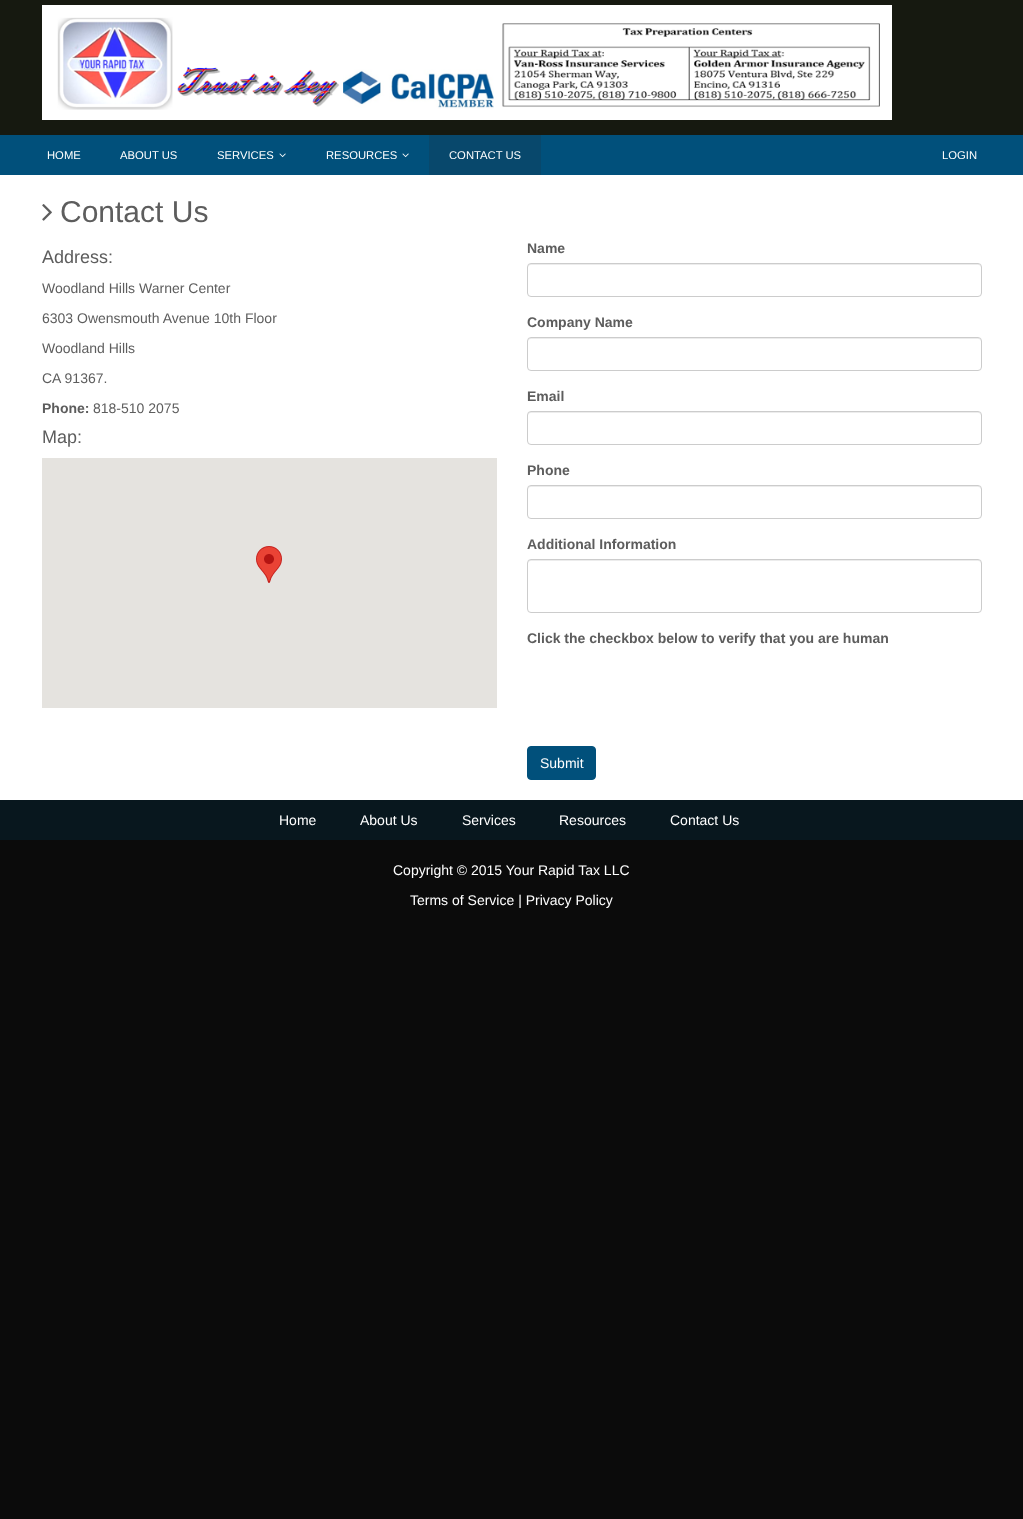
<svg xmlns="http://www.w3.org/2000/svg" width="1023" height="1519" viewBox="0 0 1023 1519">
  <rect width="100%" height="100%" fill="#0b0b0b"/>
  <rect x="0" y="0" width="1023" height="135" fill="#161910"/>
  <image x="42" y="5" width="850" height="115" href="img1.png"/>
  <rect x="0" y="135" width="1023" height="40" fill="#01507b"/>
  <text x="47" y="159" font-family="Liberation Sans" font-size="11.25" fill="#ffffff">HOME</text>
  <text x="120" y="159" font-family="Liberation Sans" font-size="11.25" fill="#ffffff">ABOUT US</text>
  <text x="217" y="159" font-family="Liberation Sans" font-size="11.25" fill="#ffffff">SERVICES</text>
  <image x="279" y="153" width="7" height="5" href="img2.png"/>
  <text x="326" y="159" font-family="Liberation Sans" font-size="11.25" fill="#ffffff">RESOURCES</text>
  <image x="402" y="153" width="7" height="5" href="img2.png"/>
  <rect x="429" y="135" width="112" height="40" fill="#08486c"/>
  <text x="449" y="159" font-family="Liberation Sans" font-size="11.25" fill="#ffffff">CONTACT US</text>
  <text x="942" y="159" font-family="Liberation Sans" font-size="11.25" fill="#ffffff">LOGIN</text>
  <rect x="0" y="175" width="1023" height="625" fill="#ffffff"/>
  <image x="42" y="204" width="10" height="17" href="img3.png"/>
  <text x="60" y="222" font-family="Liberation Sans" font-size="30" fill="#5d5d5d">Contact Us</text>
  <text x="42" y="263" font-family="Liberation Sans" font-size="18" fill="#5d5d5d">Address:</text>
  <text x="42" y="293" font-family="Liberation Sans" font-size="14" fill="#5d5d5d">Woodland Hills Warner Center</text>
  <text x="42" y="323" font-family="Liberation Sans" font-size="14" fill="#5d5d5d">6303 Owensmouth Avenue 10th Floor</text>
  <text x="42" y="353" font-family="Liberation Sans" font-size="14" fill="#5d5d5d">Woodland Hills</text>
  <text x="42" y="383" font-family="Liberation Sans" font-size="14" fill="#5d5d5d">CA 91367.</text>
  <text x="42" y="413" font-family="Liberation Sans" font-size="14" font-weight="bold" fill="#5d5d5d">Phone:</text>
  <text x="93" y="413" font-family="Liberation Sans" font-size="14" fill="#5d5d5d">818-510 2075</text>
  <text x="42" y="443" font-family="Liberation Sans" font-size="18" fill="#5d5d5d">Map:</text>
  <rect x="42" y="458" width="455" height="250" fill="#e5e3df"/>
  <image x="256" y="546" width="26" height="37" href="img4.png"/>
  <text x="527" y="253" font-family="Liberation Sans" font-size="14" font-weight="bold" fill="#5d5d5d">Name</text>
  <path d="M531 265H978C980 265 981 266 981 268V266L979 264H530C528 265 528 266 528 268C528 266 529 265 531 265Z" fill="#ececec"/>
  <rect x="527.5" y="263.5" width="454" height="33" rx="3.5" fill="none" stroke="#cccccc"/>
  <text x="527" y="327" font-family="Liberation Sans" font-size="14" font-weight="bold" fill="#5d5d5d">Company Name</text>
  <path d="M531 339H978C980 339 981 340 981 342V340L979 338H530C528 339 528 340 528 342C528 340 529 339 531 339Z" fill="#ececec"/>
  <rect x="527.5" y="337.5" width="454" height="33" rx="3.5" fill="none" stroke="#cccccc"/>
  <text x="527" y="401" font-family="Liberation Sans" font-size="14" font-weight="bold" fill="#5d5d5d">Email</text>
  <path d="M531 413H978C980 413 981 414 981 416V414L979 412H530C528 413 528 414 528 416C528 414 529 413 531 413Z" fill="#ececec"/>
  <rect x="527.5" y="411.5" width="454" height="33" rx="3.5" fill="none" stroke="#cccccc"/>
  <text x="527" y="475" font-family="Liberation Sans" font-size="14" font-weight="bold" fill="#5d5d5d">Phone</text>
  <path d="M531 487H978C980 487 981 488 981 490V488L979 486H530C528 487 528 488 528 490C528 488 529 487 531 487Z" fill="#ececec"/>
  <rect x="527.5" y="485.5" width="454" height="33" rx="3.5" fill="none" stroke="#cccccc"/>
  <text x="527" y="549" font-family="Liberation Sans" font-size="14" font-weight="bold" fill="#5d5d5d">Additional Information</text>
  <path d="M531 561H978C980 561 981 562 981 564V562L979 560H530C528 561 528 562 528 564C528 562 529 561 531 561Z" fill="#ececec"/>
  <rect x="527.5" y="559.5" width="454" height="53" rx="3.5" fill="none" stroke="#cccccc"/>
  <text x="527" y="643" font-family="Liberation Sans" font-size="14" font-weight="bold" fill="#5d5d5d">Click the checkbox below to verify that you are human</text>
  <rect x="527.5" y="746.5" width="68" height="33" rx="3.5" fill="#01507b" stroke="#01507b"/>
  <text x="540" y="768" font-family="Liberation Sans" font-size="14" fill="#ffffff">Submit</text>
  <rect x="0" y="800" width="1023" height="40" fill="#08171e"/>
  <text x="279" y="825" font-family="Liberation Sans" font-size="14" fill="#ffffff">Home</text>
  <text x="360" y="825" font-family="Liberation Sans" font-size="14" fill="#ffffff">About Us</text>
  <text x="462" y="825" font-family="Liberation Sans" font-size="14" fill="#ffffff">Services</text>
  <text x="559" y="825" font-family="Liberation Sans" font-size="14" fill="#ffffff">Resources</text>
  <text x="670" y="825" font-family="Liberation Sans" font-size="14" fill="#ffffff">Contact Us</text>
  <text x="393" y="875" font-family="Liberation Sans" font-size="14" fill="#ffffff">Copyright © 2015 Your Rapid Tax LLC</text>
  <text x="410" y="905" font-family="Liberation Sans" font-size="14" fill="#ffffff">Terms of Service | Privacy Policy</text>
</svg>
